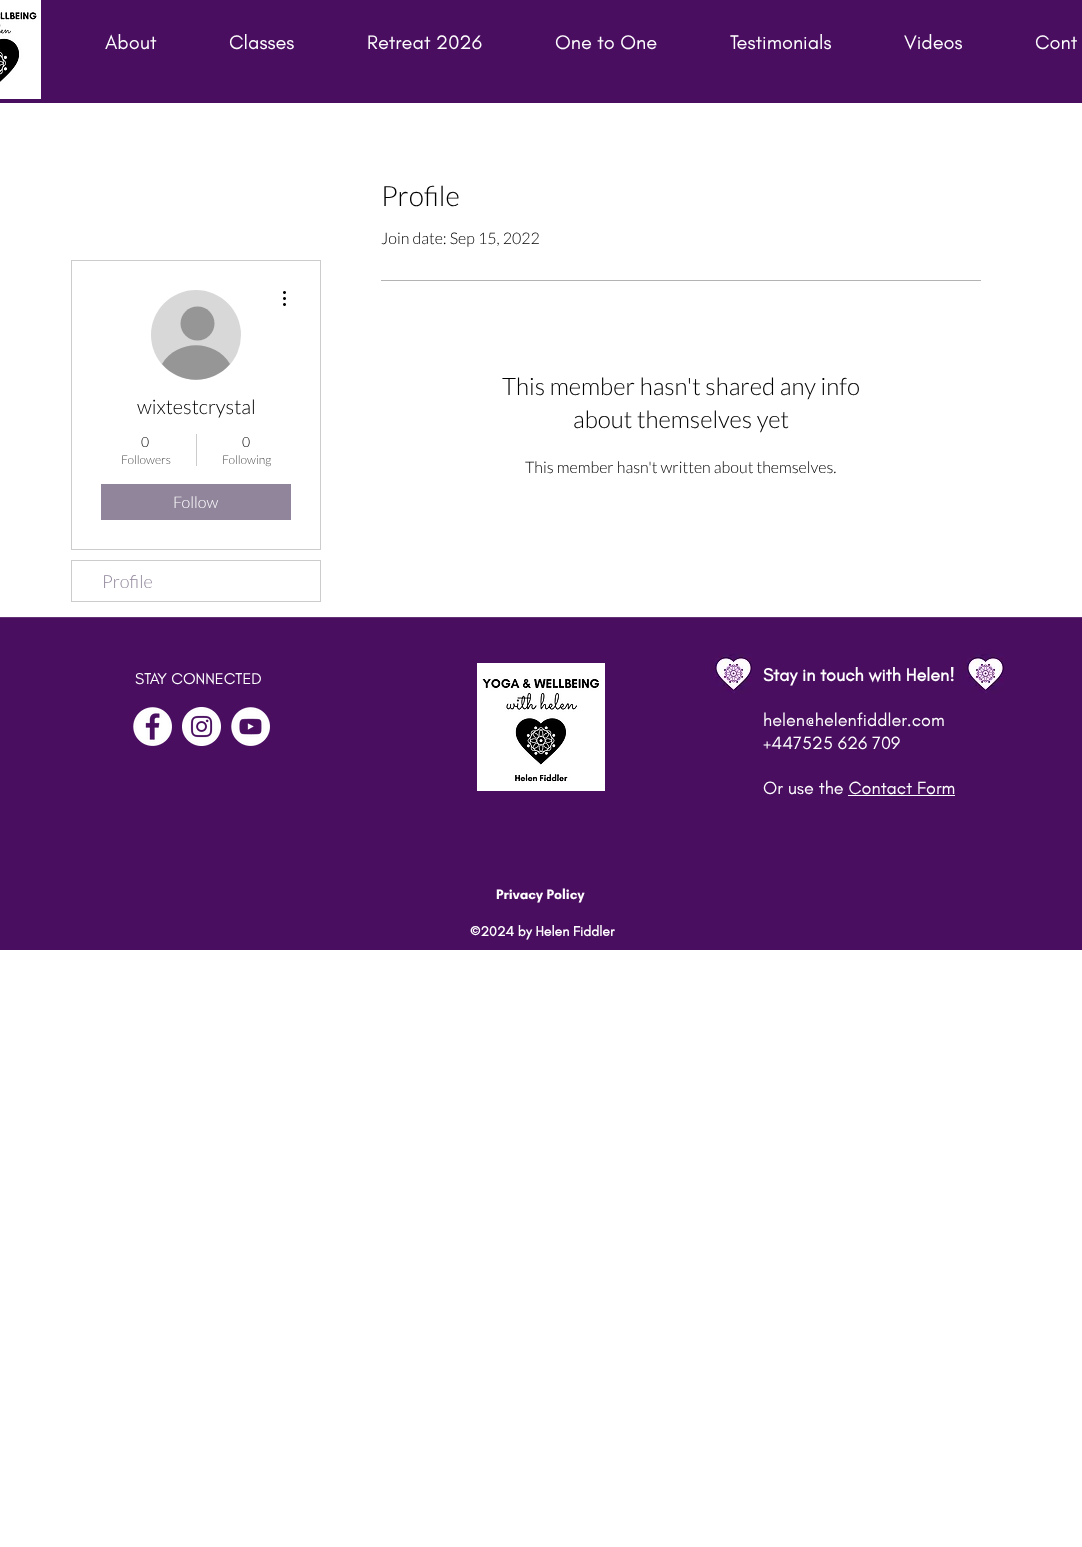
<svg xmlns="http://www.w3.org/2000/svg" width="1082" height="1547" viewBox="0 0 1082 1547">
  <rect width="100%" height="100%" fill="#ffffff"/>
  <rect x="0" y="0" width="1082" height="103" fill="#490e60"/>
  <image x="0" y="0" width="41" height="99" href="img1.png"/>
  <text x="105" y="49" font-family="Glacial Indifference" font-size="20" fill="#ffffff">About</text>
  <text x="229" y="49" font-family="Glacial Indifference" font-size="20" fill="#ffffff">Classes</text>
  <text x="367" y="49" font-family="Glacial Indifference" font-size="20" fill="#ffffff">Retreat 2026</text>
  <text x="555" y="49" font-family="Glacial Indifference" font-size="20" fill="#ffffff">One to One</text>
  <text x="730" y="49" font-family="Glacial Indifference" font-size="20" fill="#ffffff">Testimonials</text>
  <text x="904" y="49" font-family="Glacial Indifference" font-size="20" fill="#ffffff">Videos</text>
  <text x="1035" y="49" font-family="Glacial Indifference" font-size="20" fill="#ffffff">Cont</text>
  <text x="381" y="206" font-family="Lato" font-size="28" font-weight="300" fill="#000000">Profile</text>
  <text x="381" y="244" font-family="Lato" font-size="16" font-weight="300" fill="#000000">Join date: Sep 15, 2022</text>
  <rect x="381" y="280" width="600" height="1" fill="#b3b3b3"/>
  <text x="502" y="395" font-family="Lato" font-size="24" font-weight="300" fill="#000000">This member hasn't shared any info</text>
  <text x="573" y="428" font-family="Lato" font-size="24" font-weight="300" fill="#000000">about themselves yet</text>
  <text x="525" y="473" font-family="Lato" font-size="16" font-weight="300" fill="#000000">This member hasn't written about themselves.</text>
  <rect x="71.5" y="260.5" width="249" height="289" fill="none" stroke="#cccccc"/>
  <circle cx="196" cy="335" r="45" fill="#d8d8d8"/>
  <circle cx="197.5" cy="323.5" r="17" fill="#969696"/>
  <path d="M230 364C212 385 180 385 162 364C177 339 215 339 230 364Z" fill="#969696"/>
  <image x="283" y="291" width="3" height="15" href="img2.png"/>
  <text x="137" y="414" font-family="Lato" font-size="20" font-weight="300" fill="#000000">wixtestcrystal</text>
  <text x="141" y="447" font-family="Lato" font-size="14" font-weight="300" fill="#000000">0</text>
  <text x="121" y="464" font-family="Lato" font-size="12" font-weight="300" fill="#4d4d4d">Followers</text>
  <rect x="196" y="434" width="1" height="32" fill="#cccccc"/>
  <text x="242" y="447" font-family="Lato" font-size="14" font-weight="300" fill="#000000">0</text>
  <text x="222" y="464" font-family="Lato" font-size="12" font-weight="300" fill="#4d4d4d">Following</text>
  <rect x="101" y="484" width="190" height="36" fill="#90859a"/>
  <text x="173" y="508" font-family="Lato" font-size="16" font-weight="300" fill="#ffffff">Follow</text>
  <rect x="71.5" y="560.5" width="249" height="41" fill="none" stroke="#cccccc"/>
  <text x="102" y="588" font-family="Lato" font-size="18" font-weight="300" fill="#90859a">Profile</text>
  <rect x="0" y="618" width="1082" height="332" fill="#490e60"/>
  <rect x="0" y="617" width="1082" height="1" fill="#643278"/>
  <text x="135" y="684" font-family="Glacial Indifference" font-size="16" fill="#ffffff">STAY CONNECTED</text>
  <image x="477" y="663" width="128" height="128" href="img3.png"/>
  <image x="711" y="654" width="41" height="39" href="img4.png"/>
  <text x="763" y="681" font-family="Glacial Indifference" font-size="18" font-weight="bold" fill="#ffffff">Stay in touch with Helen!</text>
  <text x="763" y="726" font-family="Glacial Indifference" font-size="18" fill="#ffffff">helen@helenfiddler.com</text>
  <text x="763" y="749" font-family="Glacial Indifference" font-size="18" fill="#ffffff">+447525 626 709</text>
  <text x="763" y="794" font-family="Glacial Indifference" font-size="18" fill="#ffffff">Or use the Contact Form</text>
  <rect x="848" y="795" width="107" height="1" fill="#ffffff"/>
  <image x="963" y="654" width="41" height="39" href="img4.png"/>
  <image x="133" y="707" width="39" height="39" href="img5.png"/>
  <image x="182" y="707" width="39" height="39" href="img6.png"/>
  <image x="231" y="707" width="39" height="39" href="img7.png"/>
  <text x="496" y="899" font-family="'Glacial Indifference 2'" font-size="14" font-weight="bold" fill="#ffffff">Privacy Policy</text>
  <text x="470" y="936" font-family="Glacial Indifference" font-size="14" font-weight="bold" fill="#ffffff">©2024 by Helen Fiddler</text>
</svg>
